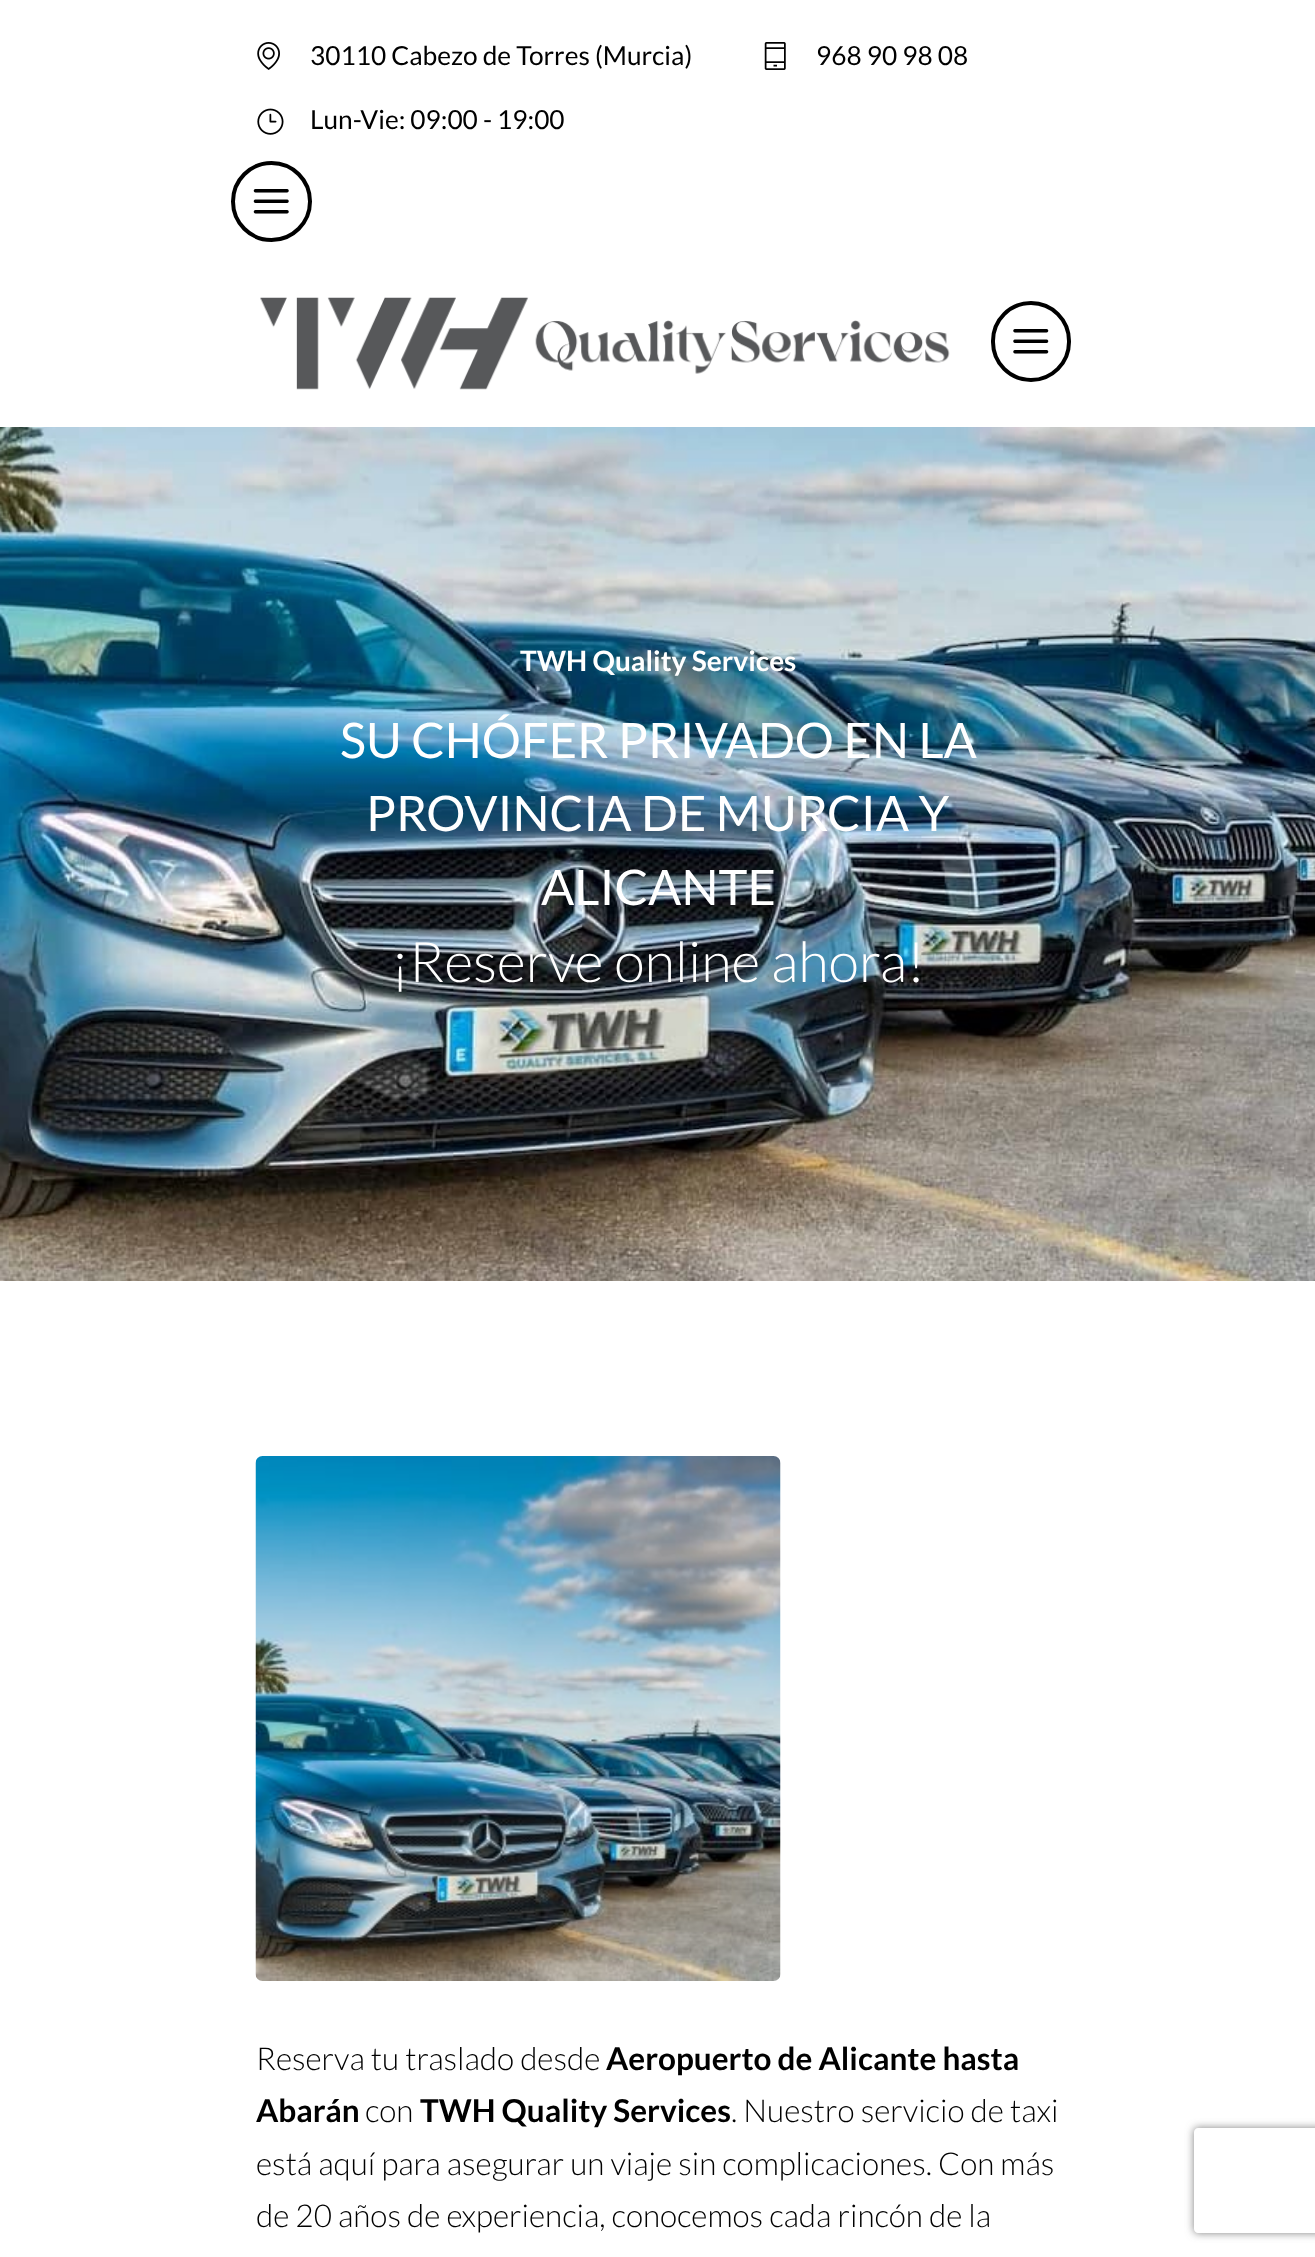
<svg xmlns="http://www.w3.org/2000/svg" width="1315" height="2257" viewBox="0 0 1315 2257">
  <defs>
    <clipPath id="clip1"><path d="M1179 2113H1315V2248H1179ZM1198 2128H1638C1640 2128 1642 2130 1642 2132V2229C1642 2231 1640 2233 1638 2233H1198C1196 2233 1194 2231 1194 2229V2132C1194 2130 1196 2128 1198 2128Z" clip-rule="evenodd"/></clipPath>
    <filter id="blur1" x="-50%" y="-200%" width="200%" height="500%"><feGaussianBlur stdDeviation="4.5"/></filter>
  </defs>
  <rect width="100%" height="100%" fill="#ffffff"/>
  <image x="257" y="42" width="23" height="28" href="img1.png"/>
  <text x="310" y="65" font-family="Lato" font-size="26.25" fill="#000000">30110 Cabezo de Torres (Murcia)</text>
  <image x="764" y="42" width="22" height="28" href="img2.png"/>
  <text x="816" y="65" font-family="Lato" font-size="26.25" fill="#000000">968 90 98 08</text>
  <image x="257" y="108" width="27" height="27" href="img3.png"/>
  <text x="310" y="129" font-family="Lato" font-size="26.25" fill="#000000">Lun-Vie: 09:00 - 19:00</text>
  <circle cx="271.5" cy="201.5" r="38.5" fill="none" stroke="#000000" stroke-width="4"/>
  <image x="253" y="189" width="36" height="25" href="img4.png"/>
  <image x="260" y="297" width="690" height="93" href="img5.png"/>
  <rect x="993" y="303" width="76" height="77" rx="38" fill="none" stroke="#000000" stroke-width="4"/>
  <image x="1013" y="329" width="36" height="25" href="img6.png"/>
  <image x="0" y="427" width="1315" height="854" href="img7.png"/>
  <text x="520" y="671" font-family="Lato" font-size="28" font-weight="bold" fill="#ffffff">TWH Quality Services</text>
  <text x="340" y="758" font-family="Lato" font-size="49" fill="#ffffff">SU CHÓFER PRIVADO EN LA</text>
  <text x="366" y="831" font-family="Lato" font-size="49" fill="#ffffff">PROVINCIA DE MURCIA Y</text>
  <text x="541" y="905" font-family="Lato" font-size="49" fill="#ffffff">ALICANTE</text>
  <text x="391" y="982" font-family="Lato" font-size="56" font-weight="300" fill="#ffffff">¡Reserve online ahora!</text>
  <image x="255" y="1456" width="526" height="525" href="img8.png"/>
  <text x="256" y="2070" font-family="Lato" font-size="31.5" font-weight="300" fill="#000000">Reserva tu traslado desde</text>
  <text x="606" y="2070" font-family="Lato" font-size="31.5" font-weight="bold" fill="#000000">Aeropuerto de Alicante hasta</text>
  <text x="256" y="2122" font-family="Lato" font-size="31.5" font-weight="bold" fill="#000000">Abarán</text>
  <text x="365" y="2122" font-family="Lato" font-size="31.5" font-weight="300" fill="#000000">con</text>
  <text x="420" y="2122" font-family="Lato" font-size="31.5" font-weight="bold" fill="#000000">TWH Quality Services</text>
  <text x="731" y="2122" font-family="Lato" font-size="31.5" font-weight="300" fill="#000000">. Nuestro servicio de taxi</text>
  <text x="256" y="2175" font-family="Lato" font-size="31.5" font-weight="300" fill="#000000">está aquí para asegurar un viaje sin complicaciones. Con más</text>
  <text x="256" y="2227" font-family="Lato" font-size="31.5" font-weight="300" fill="#000000">de 20 años de experiencia, conocemos cada rincón de la</text>
  <g clip-path="url(#clip1)">
    <rect x="1194" y="2128" width="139" height="105" rx="4" fill="#808080" filter="url(#blur1)"/>
  </g>
</svg>
